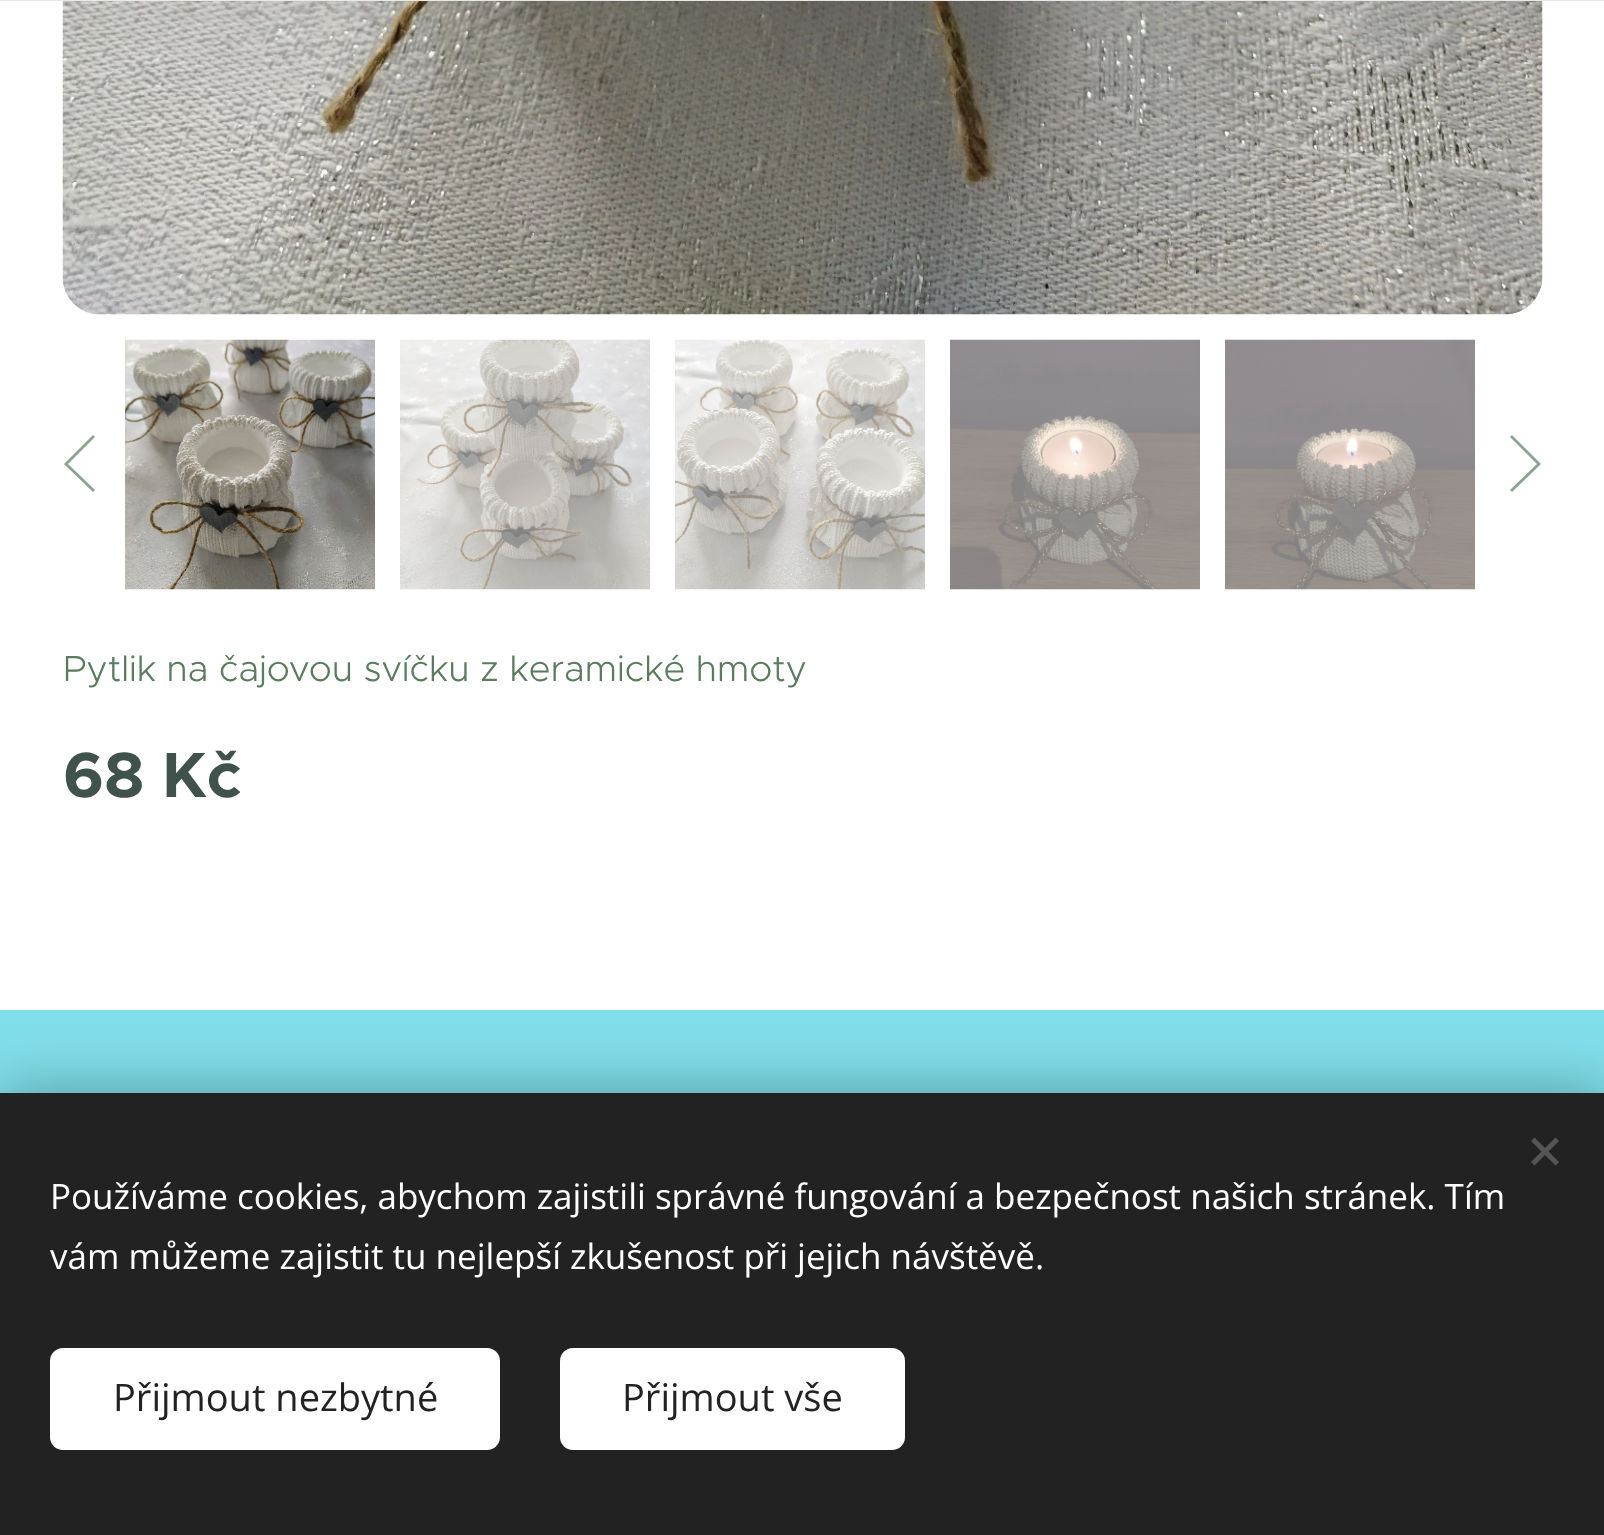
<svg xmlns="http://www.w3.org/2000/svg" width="1604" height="1535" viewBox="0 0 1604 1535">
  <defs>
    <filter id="blur1" x="-50%" y="-200%" width="200%" height="500%"><feGaussianBlur stdDeviation="31"/></filter>
  </defs>
  <rect width="100%" height="100%" fill="#ffffff"/>
  <rect x="0" y="0" width="1604" height="1" fill="#e8e8e8"/>
  <image x="62" y="1" width="1481" height="314" href="img1.png"/>
  <path d="M93 492L95 490L68 464L95 437L93 435L64 464Z" fill="#8ca38e"/>
  <image x="125" y="339" width="250" height="251" href="img2.png"/>
  <image x="400" y="339" width="250" height="251" href="img3.png"/>
  <image x="675" y="339" width="250" height="251" href="img4.png"/>
  <image x="950" y="339" width="250" height="251" href="img5.png"/>
  <image x="1225" y="339" width="250" height="251" href="img6.png"/>
  <path d="M1512 435L1510 437L1537 464L1510 490L1512 492L1541 464Z" fill="#8ca38e"/>
  <text x="63" y="681" font-family="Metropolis" font-size="36.5" font-weight="300" fill="#5a7b5e">Pytlik na čajovou svíčku z keramické hmoty</text>
  <text x="63" y="797" font-family="Metropolis" font-size="64" font-weight="bold" fill="#3f524c">68 Kč</text>
  <rect x="0" y="1010" width="1604" height="83" fill="#80deea"/>
  <rect x="0" y="1093" width="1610" height="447" fill="#000000" fill-opacity="0.33" filter="url(#blur1)"/>
  <rect x="0" y="1093" width="1604" height="442" fill="#222222"/>
  <path d="M1531 1162L1555.5 1137.5L1559 1141L1534.5 1165.5Z" fill="#555555"/>
  <path d="M1534.5 1137.5L1559 1162L1555.5 1165.5L1531 1141Z" fill="#555555"/>
  <text x="50" y="1209" font-family="Open Sans" font-size="35" fill="#ffffff">Používáme cookies, abychom zajistili správné fungování a bezpečnost našich stránek. Tím</text>
  <text x="50" y="1269" font-family="Open Sans" font-size="35" fill="#ffffff">vám můžeme zajistit tu nejlepší zkušenost při jejich návštěvě.</text>
  <rect x="50" y="1348" width="450" height="102" rx="13" fill="#ffffff"/>
  <text x="113" y="1411" font-family="Open Sans" font-size="38" fill="#222222">Přijmout nezbytné</text>
  <rect x="560" y="1348" width="345" height="102" rx="13" fill="#ffffff"/>
  <text x="622" y="1411" font-family="Open Sans" font-size="38" fill="#222222">Přijmout vše</text>
</svg>
